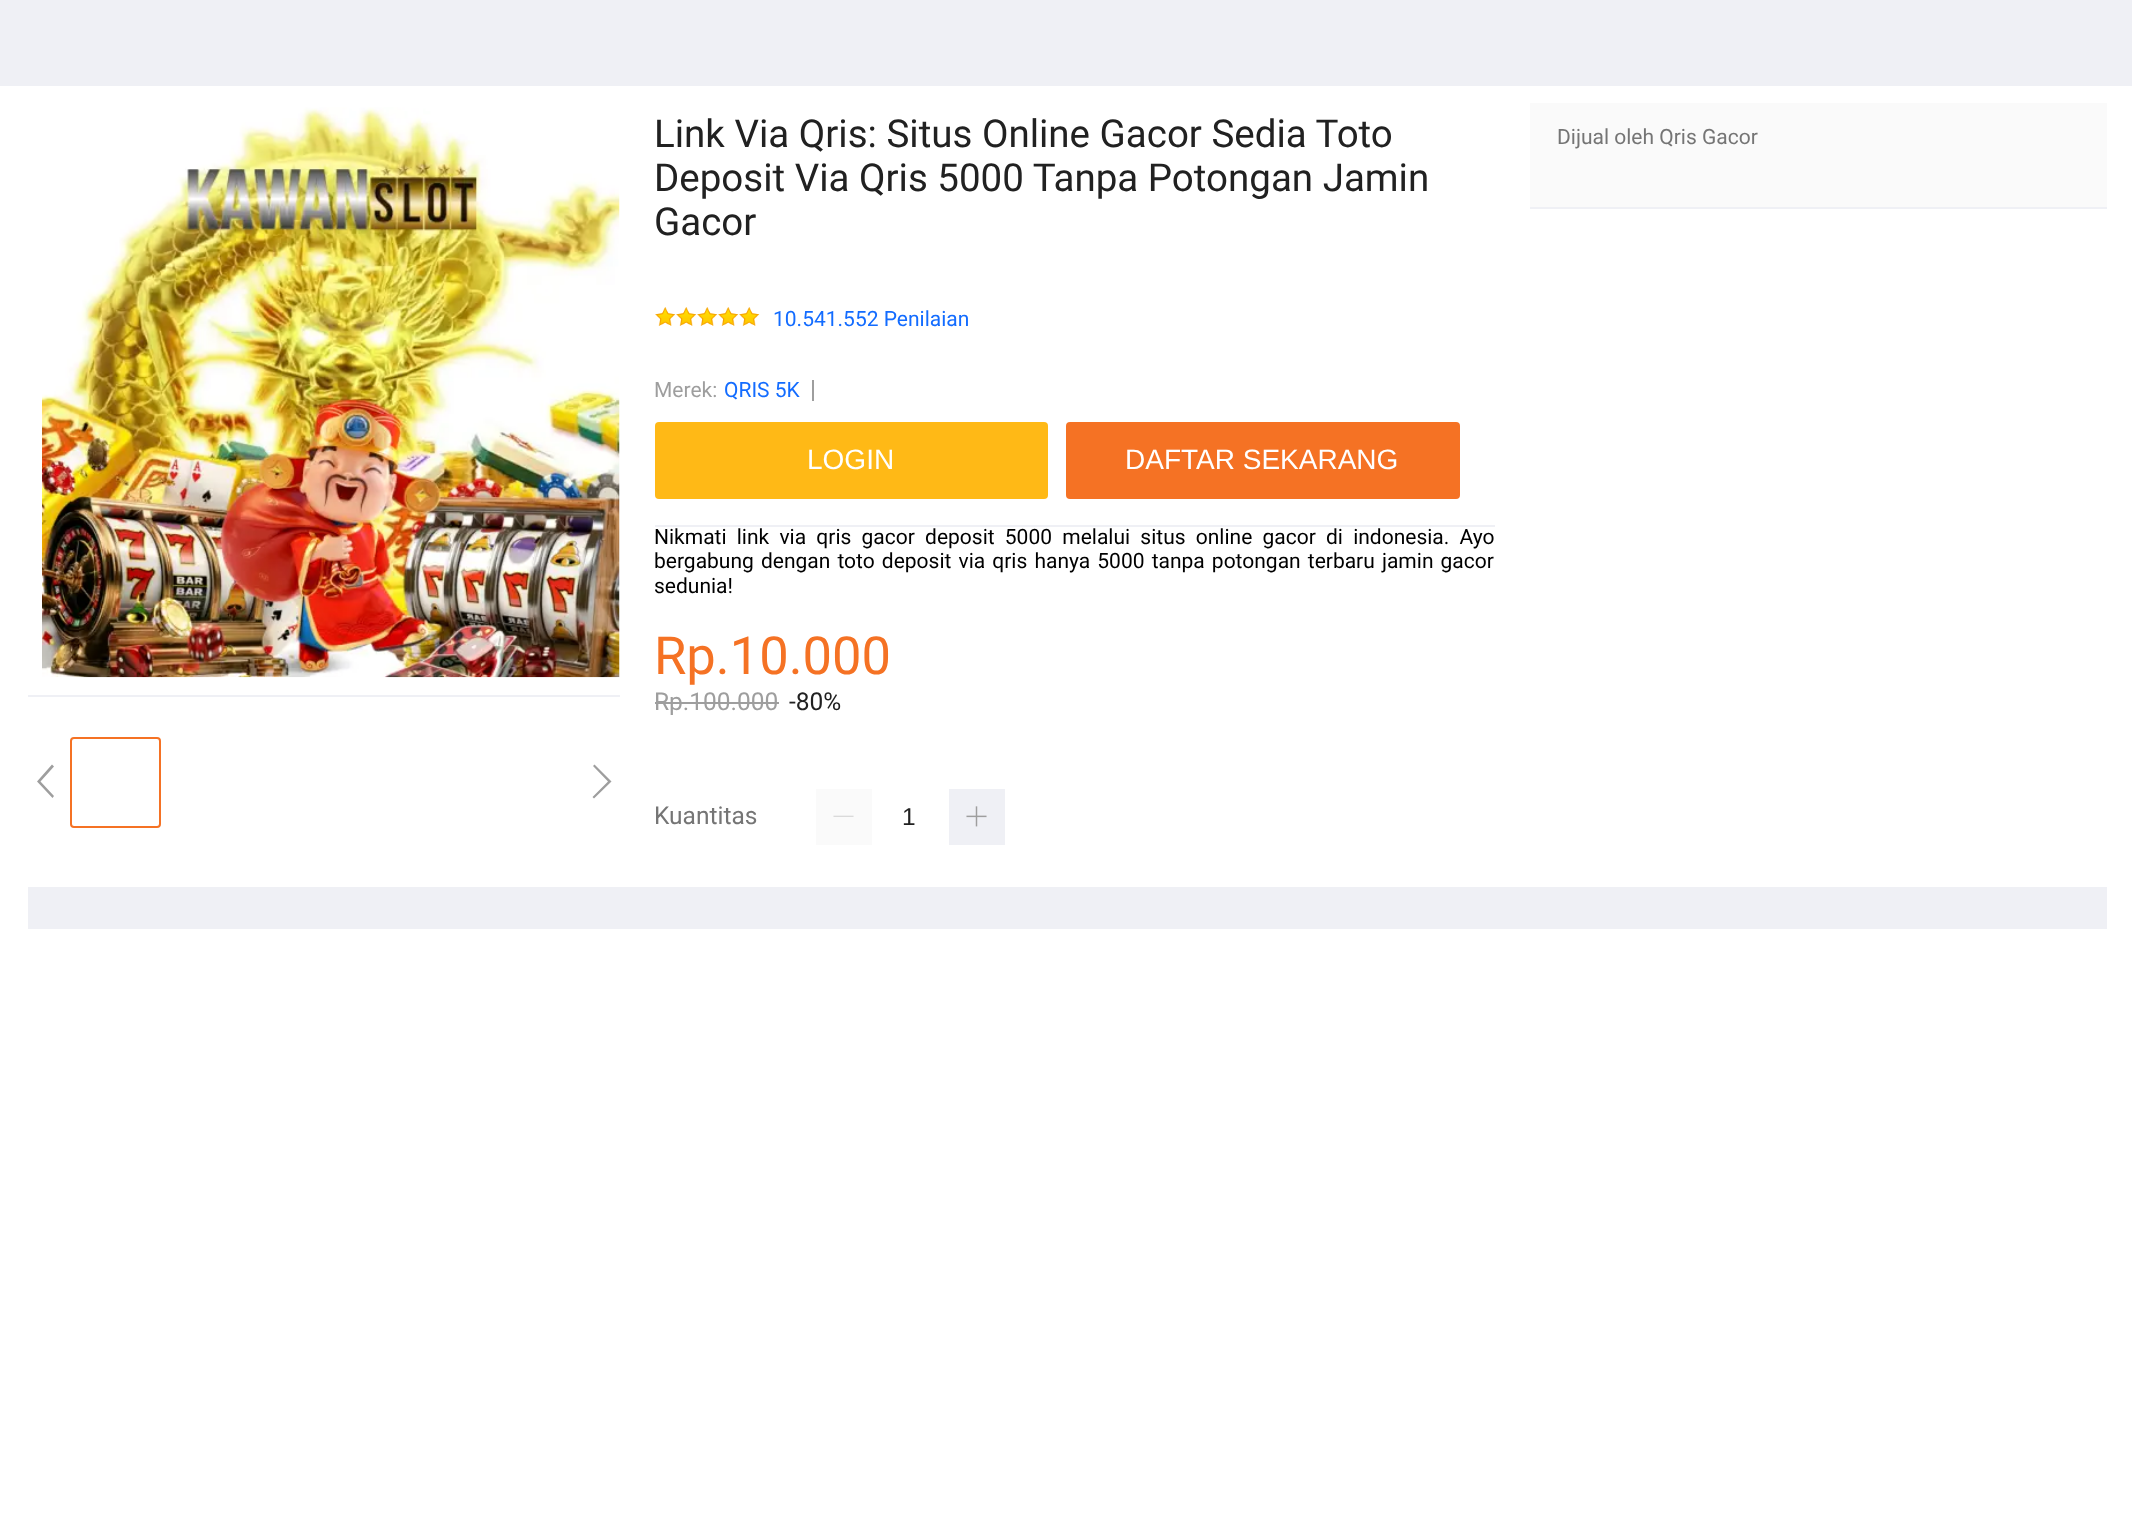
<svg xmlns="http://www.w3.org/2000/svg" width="2132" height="1526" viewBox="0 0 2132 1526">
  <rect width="100%" height="100%" fill="#ffffff"/>
  <rect x="0" y="0" width="2132" height="86" fill="#eff0f5"/>
  <rect x="28" y="887" width="2079" height="42" fill="#eff0f5"/>
  <rect x="28" y="695" width="592" height="2" fill="#eff0f5"/>
  <image x="42" y="107" width="578" height="571" href="img1.png"/>
  <path d="M54 796L40.5 781.5L54 766.5L52 764.5L37 781.5L52.5 798Z" fill="#9e9e9e"/>
  <rect x="71" y="738" width="89" height="89" rx="3" fill="none" stroke="#f57224" stroke-width="2"/>
  <path d="M594 798.5L592.5 797L608 781.5L593 766L594.5 764.5L611.5 781.5Z" fill="#9e9e9e"/>
  <text x="654" y="147" font-family="Roboto" font-size="38.5" fill="#212121">Link Via Qris: Situs Online Gacor Sedia Toto</text>
  <text x="654" y="191" font-family="Roboto" font-size="38.5" fill="#212121">Deposit Via Qris 5000 Tanpa Potongan Jamin</text>
  <text x="654" y="235" font-family="Roboto" font-size="38.5" fill="#212121">Gacor</text>
  <image x="655" y="307" width="21" height="19" href="img2.png"/>
  <image x="676" y="307" width="21" height="19" href="img2.png"/>
  <image x="697" y="307" width="21" height="19" href="img2.png"/>
  <image x="718" y="307" width="21" height="19" href="img3.png"/>
  <image x="739" y="307" width="21" height="19" href="img3.png"/>
  <text x="773" y="326" font-family="Roboto" font-size="21" fill="#136cff">10.541.552 Penilaian</text>
  <rect x="655" y="525" width="840" height="2" fill="#eff0f5"/>
  <text x="654" y="397" font-family="Roboto" font-size="21" fill="#9e9e9e">Merek:</text>
  <text x="724" y="397" font-family="Roboto" font-size="21" fill="#136cff">QRIS 5K</text>
  <rect x="812" y="380" width="2" height="21" fill="#9e9e9e"/>
  <rect x="655" y="422" width="393" height="77" rx="4" fill="#ffb916"/>
  <text x="807" y="469" font-family="Liberation Sans" font-size="28" fill="#ffffff">LOGIN</text>
  <rect x="1066" y="422" width="394" height="77" rx="4" fill="#f57224"/>
  <text x="1125" y="469" font-family="Liberation Sans" font-size="28" fill="#ffffff">DAFTAR SEKARANG</text>
  <text x="654" y="544" word-spacing="5" font-family="Roboto" font-size="21" fill="#000000">Nikmati link via qris gacor deposit 5000 melalui situs online gacor di indonesia. Ayo</text>
  <text x="654" y="568" word-spacing="1.9" font-family="Roboto" font-size="21" fill="#000000">bergabung dengan toto deposit via qris hanya 5000 tanpa potongan terbaru jamin gacor</text>
  <text x="654" y="593" font-family="Roboto" font-size="21" fill="#000000">sedunia!</text>
  <text x="654" y="674" font-family="Roboto" font-size="52.5" fill="#f57224">Rp.10.000</text>
  <text x="654" y="710" font-family="Roboto" font-size="24.5" fill="#9e9e9e">Rp.100.000</text>
  <rect x="655" y="702" width="124" height="2" fill="#9e9e9e"/>
  <text x="789" y="710" font-family="Roboto" font-size="24.5" fill="#212121">-80%</text>
  <text x="654" y="824" font-family="Roboto" font-size="24.5" fill="#757575">Kuantitas</text>
  <rect x="816" y="789" width="56" height="56" fill="#fafafa"/>
  <image x="833" y="815" width="21" height="2" href="img4.png"/>
  <rect x="949" y="789" width="56" height="56" fill="#eff0f5"/>
  <image x="966" y="806" width="21" height="21" href="img5.png"/>
  <text x="902" y="825" font-family="Liberation Sans" font-size="24.5" fill="#212121">1</text>
  <rect x="1530" y="103" width="577" height="104" fill="#fafafa"/>
  <text x="1557" y="144" font-family="Roboto" font-size="21" fill="#757575">Dijual oleh Qris Gacor</text>
  <rect x="1530" y="207" width="577" height="2" fill="#eff0f5"/>
</svg>
